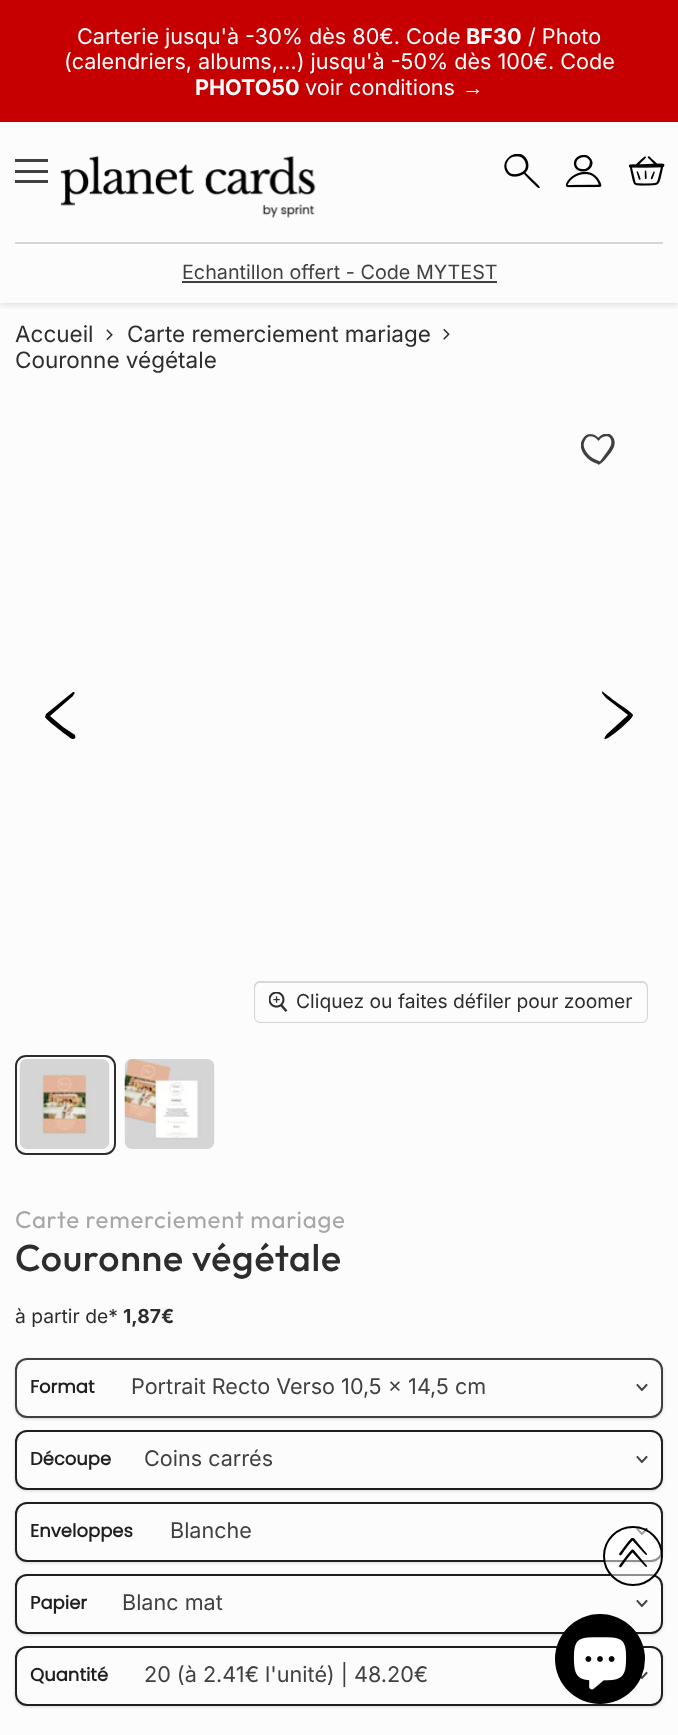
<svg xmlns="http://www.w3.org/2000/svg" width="678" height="1735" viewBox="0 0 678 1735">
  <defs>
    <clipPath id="clip1"><rect x="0" y="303" width="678" height="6"/></clipPath>
    <filter id="blur1" x="-50%" y="-200%" width="200%" height="500%"><feGaussianBlur stdDeviation="3"/></filter>
    <filter id="blur2" x="-50%" y="-200%" width="200%" height="500%"><feGaussianBlur stdDeviation="1.5"/></filter>
    <clipPath id="clip2"><rect x="144" y="1662" width="518" height="26"/></clipPath>
  </defs>
  <rect width="100%" height="100%" fill="#fcfcfc"/>
  <g clip-path="url(#clip1)">
    <rect x="0" y="123" width="678" height="182" fill="#7e7e7e" fill-opacity="0.25" filter="url(#blur1)"/>
  </g>
  <rect x="0" y="0" width="678" height="122" fill="#c60000"/>
  <text x="77" y="44" font-family="Inter" font-size="21.6" fill="#ffffff">Carterie jusqu'à -30% dès 80€. Code</text>
  <text x="466" y="44" font-family="Inter" font-size="21.6" font-weight="bold" fill="#ffffff">BF30</text>
  <text x="528" y="44" font-family="Inter" font-size="21.6" fill="#ffffff">/ Photo</text>
  <text x="64" y="69" font-family="Inter" font-size="21.6" fill="#ffffff">(calendriers, albums,…) jusqu'à -50% dès 100€. Code</text>
  <text x="195" y="95" font-family="Inter" font-size="21.6" font-weight="bold" fill="#ffffff">PHOTO50</text>
  <text x="305" y="95" font-family="Inter" font-size="21.6" fill="#ffffff">voir conditions</text>
  <text x="462" y="95" font-family="Liberation Sans" font-size="21.6" fill="#ffffff">→</text>
  <rect x="15" y="159" width="33" height="3" fill="#413f3f"/>
  <rect x="15" y="170" width="33" height="3" fill="#413f3f"/>
  <rect x="15" y="180" width="33" height="3" fill="#413f3f"/>
  <image x="60" y="156" width="256" height="62" href="img1.png"/>
  <image x="504" y="154" width="36" height="34" href="img2.png"/>
  <image x="566" y="155" width="36" height="33" href="img3.png"/>
  <image x="629" y="156" width="36" height="30" href="img4.png"/>
  <rect x="15" y="242" width="648" height="2" fill="#d7d6d6"/>
  <text x="182" y="279" font-family="Inter" font-size="19.75" fill="#413f3f">Echantillon offert - Code MYTEST</text>
  <rect x="182" y="281" width="315" height="2" fill="#413f3f"/>
  <text x="15" y="342" font-family="Inter" font-size="22.5" fill="#2e2c2c">Accueil</text>
  <image x="106" y="329" width="7" height="12" href="img5.png"/>
  <text x="127" y="342" font-family="Inter" font-size="22.5" fill="#2e2c2c">Carte remerciement mariage</text>
  <image x="443" y="328" width="7" height="12" href="img6.png"/>
  <text x="15" y="368" font-family="Inter" font-size="22.5" fill="#2e2c2c">Couronne végétale</text>
  <image x="581" y="434" width="34" height="31" href="img7.png"/>
  <path d="M50 716L63 727L75 735C75 736 76 738 75 738L74 739H72C70 738 46 720 45 717L46 714L73 692H74C76 693 73 695 73 696Z" fill="#000000"/>
  <path d="M628 715L606 698L602 693C602 692 602 691 603 692L611 698C614 701 632 712 633 715C633 719 608 740 605 739C603 739 607 734 607 734Z" fill="#000000"/>
  <rect x="255" y="982" width="392" height="40" rx="5" fill="none" stroke="#d6d6d6" stroke-width="2"/>
  <rect x="255" y="983" width="392" height="39" rx="5" fill="#fcfcfc" fill-opacity="0.9"/>
  <image x="269" y="992" width="19" height="20" href="img8.png"/>
  <text x="296" y="1008" font-family="Inter" font-size="19.25" fill="#2e2c2c">Cliquez ou faites défiler pour zoomer</text>
  <rect x="16" y="1056" width="99" height="98" rx="10" fill="none" stroke="#2e2c2c" stroke-width="2"/>
  <image x="19" y="1059" width="91" height="90" href="img9.png"/>
  <image x="124" y="1059" width="91" height="90" href="img10.png"/>
  <text x="15" y="1228" font-family="Outfit" font-size="24" letter-spacing="0.75" fill="#a7a7a7">Carte remerciement mariage</text>
  <text x="15" y="1271" font-family="Outfit" font-size="37.5" font-weight="500" letter-spacing="0.75" fill="#2e2c2c">Couronne végétale</text>
  <text x="15" y="1323" font-family="Inter" font-size="19.25" fill="#2e2c2c">à partir de*</text>
  <text x="123" y="1323" font-family="Inter" font-size="19.25" font-weight="bold" fill="#2e2c2c">1,87€</text>
  <rect x="15" y="1359" width="648" height="60" rx="12" fill="#000000" fill-opacity="0.15" filter="url(#blur2)"/>
  <rect x="16" y="1359" width="646" height="58" rx="11" fill="#fcfcfc" stroke="#413f3f" stroke-width="2"/>
  <text x="30" y="1393" font-family="Poppins" font-size="18" font-weight="bold" fill="#1f1f1f">Format</text>
  <text x="131" y="1394" font-family="Inter" font-size="21.6" fill="#413f3f">Portrait Recto Verso 10,5 x 14,5 cm</text>
  <path d="M642 1390L646.5 1385M642 1390L637.5 1385" fill="none" stroke="#413f3f" stroke-width="1.9" stroke-linecap="square"/>
  <rect x="15" y="1431" width="648" height="60" rx="12" fill="#000000" fill-opacity="0.15" filter="url(#blur2)"/>
  <rect x="16" y="1431" width="646" height="58" rx="11" fill="#fcfcfc" stroke="#1f1f1f" stroke-width="2"/>
  <text x="30" y="1465" font-family="Poppins" font-size="18" font-weight="bold" fill="#1f1f1f">Découpe</text>
  <text x="144" y="1466" font-family="Inter" font-size="21.6" fill="#413f3f">Coins carrés</text>
  <path d="M642 1462L646.5 1457M642 1462L637.5 1457" fill="none" stroke="#413f3f" stroke-width="1.9" stroke-linecap="square"/>
  <rect x="15" y="1503" width="648" height="60" rx="12" fill="#000000" fill-opacity="0.15" filter="url(#blur2)"/>
  <rect x="16" y="1503" width="646" height="58" rx="11" fill="#fcfcfc" stroke="#1f1f1f" stroke-width="2"/>
  <text x="30" y="1537" font-family="Poppins" font-size="18" font-weight="bold" fill="#1f1f1f">Enveloppes</text>
  <text x="170" y="1538" font-family="Inter" font-size="21.6" fill="#413f3f">Blanche</text>
  <path d="M642 1534L646.5 1529M642 1534L637.5 1529" fill="none" stroke="#413f3f" stroke-width="1.9" stroke-linecap="square"/>
  <rect x="15" y="1575" width="648" height="60" rx="12" fill="#000000" fill-opacity="0.15" filter="url(#blur2)"/>
  <rect x="16" y="1575" width="646" height="58" rx="11" fill="#fcfcfc" stroke="#1f1f1f" stroke-width="2"/>
  <text x="30" y="1609" font-family="Poppins" font-size="18" font-weight="bold" fill="#1f1f1f">Papier</text>
  <text x="122" y="1610" font-family="Inter" font-size="21.6" fill="#413f3f">Blanc mat</text>
  <path d="M642 1606L646.5 1601M642 1606L637.5 1601" fill="none" stroke="#413f3f" stroke-width="1.9" stroke-linecap="square"/>
  <rect x="15" y="1647" width="648" height="60" rx="12" fill="#000000" fill-opacity="0.15" filter="url(#blur2)"/>
  <rect x="16" y="1647" width="646" height="58" rx="11" fill="#fcfcfc" stroke="#1f1f1f" stroke-width="2"/>
  <text x="30" y="1681" font-family="Poppins" font-size="18" font-weight="bold" fill="#1f1f1f">Quantité</text>
  <g clip-path="url(#clip2)">
    <text x="144" y="1682" font-family="Inter" font-size="21.6" fill="#413f3f">20 (à 2.41€ l'unité) | 48.20€</text>
  </g>
  <path d="M642 1678L646.5 1673M642 1678L637.5 1673" fill="none" stroke="#413f3f" stroke-width="1.9" stroke-linecap="square"/>
  <circle cx="633" cy="1556" r="29" fill="#ffffff" fill-opacity="0.5" stroke="#000000" stroke-width="2"/>
  <image x="619" y="1538" width="28" height="30" href="img11.png"/>
  <circle cx="600" cy="1659" r="45" fill="#000000"/>
  <image x="573" y="1637" width="54" height="53" href="img12.png"/>
</svg>
